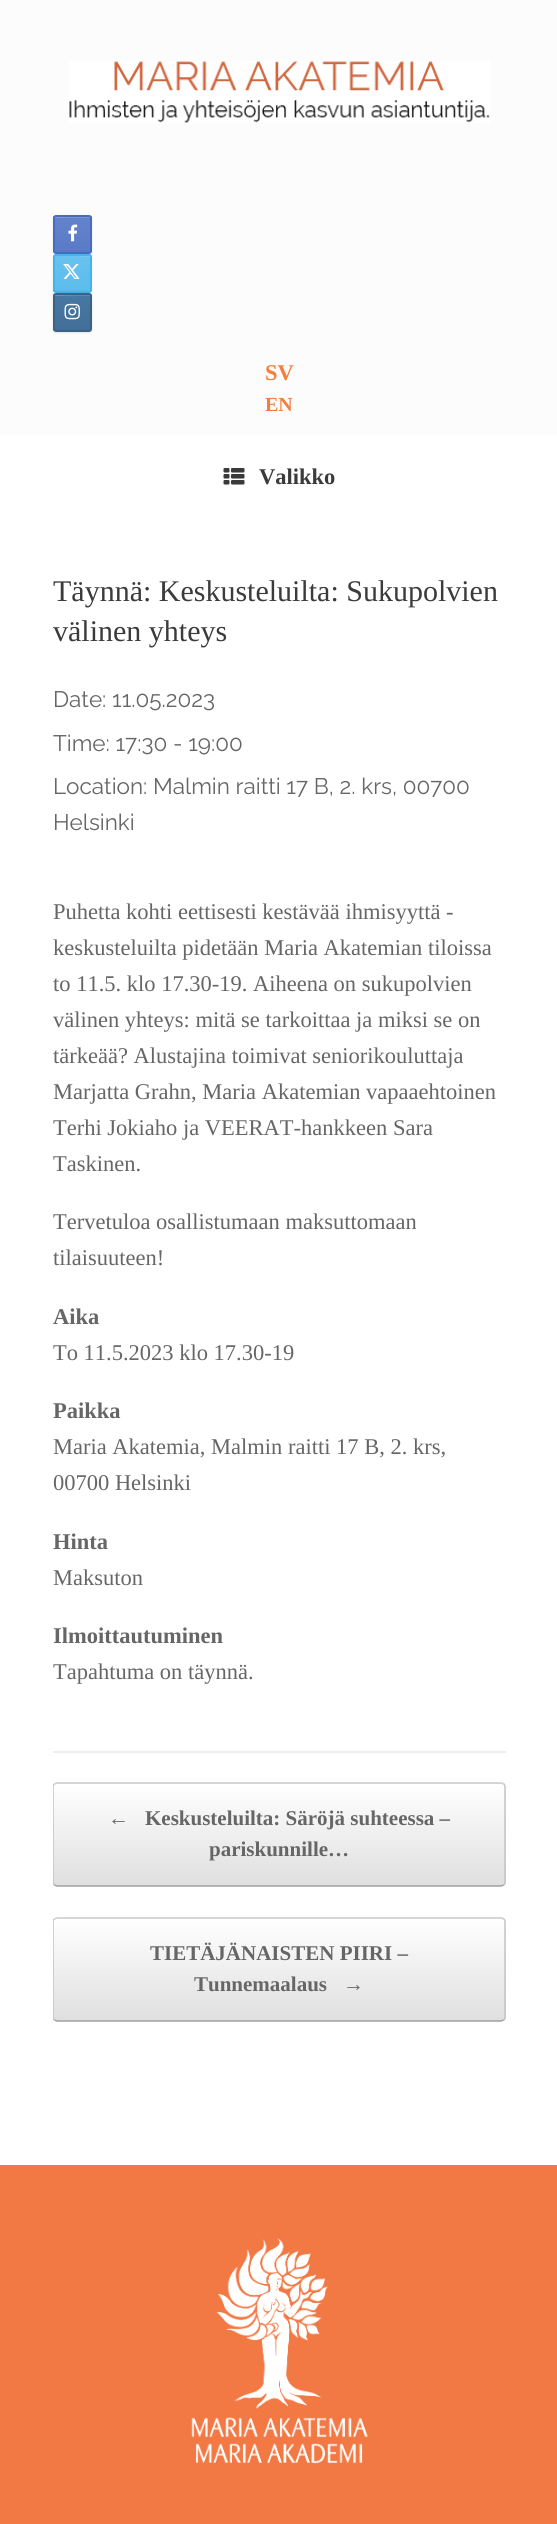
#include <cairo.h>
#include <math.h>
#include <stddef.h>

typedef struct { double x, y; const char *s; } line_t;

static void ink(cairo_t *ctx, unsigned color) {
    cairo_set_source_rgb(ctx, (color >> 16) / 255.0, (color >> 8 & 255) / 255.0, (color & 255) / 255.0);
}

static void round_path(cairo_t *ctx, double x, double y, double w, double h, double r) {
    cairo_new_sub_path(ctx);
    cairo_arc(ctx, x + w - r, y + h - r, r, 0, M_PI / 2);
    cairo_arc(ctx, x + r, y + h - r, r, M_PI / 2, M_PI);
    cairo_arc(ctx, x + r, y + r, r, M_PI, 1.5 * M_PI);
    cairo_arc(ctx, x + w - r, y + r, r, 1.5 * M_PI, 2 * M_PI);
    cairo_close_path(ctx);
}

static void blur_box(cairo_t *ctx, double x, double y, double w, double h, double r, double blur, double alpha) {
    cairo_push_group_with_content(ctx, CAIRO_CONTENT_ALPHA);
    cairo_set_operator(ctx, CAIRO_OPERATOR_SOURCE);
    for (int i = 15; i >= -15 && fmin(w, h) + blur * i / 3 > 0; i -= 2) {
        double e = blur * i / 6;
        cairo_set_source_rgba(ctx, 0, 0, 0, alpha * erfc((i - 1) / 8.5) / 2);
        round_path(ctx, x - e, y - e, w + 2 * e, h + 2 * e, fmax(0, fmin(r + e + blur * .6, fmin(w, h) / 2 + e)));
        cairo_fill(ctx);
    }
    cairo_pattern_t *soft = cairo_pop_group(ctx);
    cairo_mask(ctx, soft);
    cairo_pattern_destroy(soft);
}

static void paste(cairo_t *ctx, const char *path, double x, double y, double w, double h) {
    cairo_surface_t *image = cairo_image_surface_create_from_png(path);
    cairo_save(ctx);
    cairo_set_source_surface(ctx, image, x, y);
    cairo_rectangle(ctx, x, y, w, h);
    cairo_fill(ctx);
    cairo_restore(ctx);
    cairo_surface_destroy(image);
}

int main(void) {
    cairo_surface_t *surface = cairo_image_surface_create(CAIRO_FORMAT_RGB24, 557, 2524);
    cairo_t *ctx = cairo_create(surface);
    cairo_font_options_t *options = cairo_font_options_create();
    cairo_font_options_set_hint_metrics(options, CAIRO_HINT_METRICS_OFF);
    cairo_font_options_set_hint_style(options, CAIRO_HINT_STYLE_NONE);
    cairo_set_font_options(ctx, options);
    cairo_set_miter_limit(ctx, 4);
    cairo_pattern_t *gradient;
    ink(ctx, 0xF27844);
    cairo_paint(ctx);
    ink(ctx, 0xFCFCFC);
    cairo_rectangle(ctx, 0, 0, 557, 435);
    cairo_fill(ctx);
    paste(ctx, "media/1.png", 69, 61, 421, 62);
    ink(ctx, 0x000000);
    blur_box(ctx, 53, 216, 39, 39, 3, 1, 0.1);
    cairo_save(ctx);
    round_path(ctx, 53, 215, 39, 39, 3);
    cairo_clip(ctx);
    gradient = cairo_pattern_create_linear(72, 252, 72, 216);
    cairo_pattern_add_color_stop_rgba(gradient, 0, 0.349, 0.478, 0.78, 1);
    cairo_pattern_add_color_stop_rgba(gradient, 1, 0.392, 0.514, 0.796, 1);
    cairo_set_source(ctx, gradient);
    cairo_pattern_destroy(gradient);
    cairo_rectangle(ctx, 53, 216, 39, 36);
    cairo_fill(ctx);
    cairo_restore(ctx);
    ink(ctx, 0x839CD5);
    cairo_new_path(ctx);
    cairo_move_to(ctx, 56, 218);
    cairo_curve_to(ctx, 61.5, 218, 89, 217, 90, 218);
    cairo_curve_to(ctx, 90, 214.5, 85, 216, 83, 216);
    cairo_line_to(ctx, 61, 216);
    cairo_curve_to(ctx, 55.5, 216, 54, 214.5, 54, 219.5);
    cairo_curve_to(ctx, 54, 218.5, 55, 218, 56, 218);
    cairo_close_path(ctx);
    cairo_fill(ctx);
    round_path(ctx, 54, 216, 37, 37, 2);
    ink(ctx, 0x466BC1);
    cairo_stroke(ctx);
    paste(ctx, "media/2.png", 68, 224, 10, 18);
    ink(ctx, 0x000000);
    blur_box(ctx, 53, 255, 39, 39, 3, 1, 0.1);
    cairo_save(ctx);
    round_path(ctx, 53, 254, 39, 39, 3);
    cairo_clip(ctx);
    gradient = cairo_pattern_create_linear(72, 291, 72, 255);
    cairo_pattern_add_color_stop_rgba(gradient, 0, 0.357, 0.737, 0.925, 1);
    cairo_pattern_add_color_stop_rgba(gradient, 1, 0.412, 0.761, 0.933, 1);
    cairo_set_source(ctx, gradient);
    cairo_pattern_destroy(gradient);
    cairo_rectangle(ctx, 53, 255, 39, 36);
    cairo_fill(ctx);
    cairo_restore(ctx);
    ink(ctx, 0x87CEF1);
    cairo_new_path(ctx);
    cairo_move_to(ctx, 56, 256);
    cairo_curve_to(ctx, 59, 256, 89, 256, 90, 257);
    cairo_curve_to(ctx, 90, 253.5, 85, 255, 83, 255);
    cairo_line_to(ctx, 61, 255);
    cairo_curve_to(ctx, 56.5, 255, 54, 253.5, 54, 258);
    cairo_curve_to(ctx, 54, 257, 55, 256, 56, 256);
    cairo_close_path(ctx);
    cairo_fill(ctx);
    round_path(ctx, 54, 255, 37, 37, 2);
    ink(ctx, 0x44B3E9);
    cairo_stroke(ctx);
    paste(ctx, "media/3.png", 63, 264, 17, 15);
    ink(ctx, 0x000000);
    blur_box(ctx, 53, 294, 39, 39, 3, 1, 0.1);
    cairo_save(ctx);
    round_path(ctx, 53, 293, 39, 39, 3);
    cairo_clip(ctx);
    gradient = cairo_pattern_create_linear(72, 330, 72, 294);
    cairo_pattern_add_color_stop_rgba(gradient, 0, 0.259, 0.435, 0.596, 1);
    cairo_pattern_add_color_stop_rgba(gradient, 1, 0.278, 0.467, 0.639, 1);
    cairo_set_source(ctx, gradient);
    cairo_pattern_destroy(gradient);
    cairo_rectangle(ctx, 53, 294, 39, 36);
    cairo_fill(ctx);
    cairo_restore(ctx);
    ink(ctx, 0x6C92B5);
    cairo_new_path(ctx);
    cairo_move_to(ctx, 56, 296);
    cairo_curve_to(ctx, 61.5, 296, 89, 295, 90, 296);
    cairo_curve_to(ctx, 90, 292.5, 85, 294, 83, 294);
    cairo_line_to(ctx, 61, 294);
    cairo_curve_to(ctx, 55.5, 294, 54, 292.5, 54, 297.5);
    cairo_curve_to(ctx, 54, 296.5, 55, 296, 56, 296);
    cairo_close_path(ctx);
    cairo_fill(ctx);
    round_path(ctx, 54, 294, 37, 37, 2);
    ink(ctx, 0x3A6286);
    cairo_stroke(ctx);
    paste(ctx, "media/4.png", 64, 303, 16, 17);
    cairo_select_font_face(ctx, "Liberation Serif", CAIRO_FONT_SLANT_NORMAL, CAIRO_FONT_WEIGHT_BOLD);
    cairo_set_font_size(ctx, 22.5);
    ink(ctx, 0xF47E3C);
    cairo_move_to(ctx, 265, 380);
    cairo_show_text(ctx, "SV");
    cairo_set_font_size(ctx, 20);
    cairo_move_to(ctx, 265, 411);
    cairo_show_text(ctx, "EN");
    ink(ctx, 0xFFFFFF);
    cairo_rectangle(ctx, 0, 435, 557, 1730);
    cairo_fill(ctx);
    paste(ctx, "media/5.png", 223, 468, 22, 17);
    cairo_set_font_size(ctx, 22.5);
    ink(ctx, 0x3B3B3B);
    cairo_move_to(ctx, 259, 484);
    cairo_show_text(ctx, "Valikko");
    ink(ctx, 0xEEEEEE);
    cairo_rectangle(ctx, 53, 1751, 453, 2);
    cairo_fill(ctx);
    cairo_select_font_face(ctx, "Liberation Serif", CAIRO_FONT_SLANT_NORMAL, CAIRO_FONT_WEIGHT_NORMAL);
    cairo_set_font_size(ctx, 30);
    ink(ctx, 0x3B3B3B);
    cairo_move_to(ctx, 53, 601);
    cairo_show_text(ctx, "Täynnä: Keskusteluilta: Sukupolvien");
    cairo_move_to(ctx, 53, 641);
    cairo_show_text(ctx, "välinen yhteys");
    cairo_select_font_face(ctx, "Raleway Thin", CAIRO_FONT_SLANT_NORMAL, CAIRO_FONT_WEIGHT_NORMAL);
    cairo_set_font_size(ctx, 22.5);
    ink(ctx, 0x666666);
    {
        static const line_t items[] = {
            {53, 707, "Date: 11.05.2023"},
            {53, 751, "Time: 17:30 - 19:00"},
            {53, 794, "Location: Malmin raitti 17 B, 2. krs, 00700"},
            {53, 830, "Helsinki"},
        };
        for (size_t i = 0; i < sizeof items / sizeof *items; i++) {
            cairo_move_to(ctx, items[i].x, items[i].y);
            cairo_show_text(ctx, items[i].s);
        }
    }
    cairo_select_font_face(ctx, "Liberation Serif", CAIRO_FONT_SLANT_NORMAL, CAIRO_FONT_WEIGHT_NORMAL);
    {
        static const line_t items[] = {
            {53, 919, "Puhetta kohti eettisesti kestävää ihmisyyttä -"},
            {53, 955, "keskusteluilta pidetään Maria Akatemian tiloissa"},
            {53, 991, "to 11.5. klo 17.30-19. Aiheena on sukupolvien"},
            {53, 1027, "välinen yhteys: mitä se tarkoittaa ja miksi se on"},
            {53, 1063, "tärkeää? Alustajina toimivat seniorikouluttaja"},
            {53, 1099, "Marjatta Grahn, Maria Akatemian vapaaehtoinen"},
            {53, 1135, "Terhi Jokiaho ja VEERAT-hankkeen Sara"},
            {53, 1171, "Taskinen."},
            {53, 1229, "Tervetuloa osallistumaan maksuttomaan"},
            {53, 1265, "tilaisuuteen!"},
        };
        for (size_t i = 0; i < sizeof items / sizeof *items; i++) {
            cairo_move_to(ctx, items[i].x, items[i].y);
            cairo_show_text(ctx, items[i].s);
        }
    }
    cairo_select_font_face(ctx, "Liberation Serif", CAIRO_FONT_SLANT_NORMAL, CAIRO_FONT_WEIGHT_BOLD);
    cairo_move_to(ctx, 53, 1324);
    cairo_show_text(ctx, "Aika");
    cairo_select_font_face(ctx, "Liberation Serif", CAIRO_FONT_SLANT_NORMAL, CAIRO_FONT_WEIGHT_NORMAL);
    cairo_move_to(ctx, 53, 1360);
    cairo_show_text(ctx, "To 11.5.2023 klo 17.30-19");
    cairo_select_font_face(ctx, "Liberation Serif", CAIRO_FONT_SLANT_NORMAL, CAIRO_FONT_WEIGHT_BOLD);
    cairo_move_to(ctx, 53, 1418);
    cairo_show_text(ctx, "Paikka");
    cairo_select_font_face(ctx, "Liberation Serif", CAIRO_FONT_SLANT_NORMAL, CAIRO_FONT_WEIGHT_NORMAL);
    cairo_move_to(ctx, 53, 1454);
    cairo_show_text(ctx, "Maria Akatemia, Malmin raitti 17 B, 2. krs,");
    cairo_move_to(ctx, 53, 1490);
    cairo_show_text(ctx, "00700 Helsinki");
    cairo_select_font_face(ctx, "Liberation Serif", CAIRO_FONT_SLANT_NORMAL, CAIRO_FONT_WEIGHT_BOLD);
    cairo_move_to(ctx, 53, 1549);
    cairo_show_text(ctx, "Hinta");
    cairo_select_font_face(ctx, "Liberation Serif", CAIRO_FONT_SLANT_NORMAL, CAIRO_FONT_WEIGHT_NORMAL);
    cairo_move_to(ctx, 53, 1585);
    cairo_show_text(ctx, "Maksuton");
    cairo_select_font_face(ctx, "Liberation Serif", CAIRO_FONT_SLANT_NORMAL, CAIRO_FONT_WEIGHT_BOLD);
    cairo_move_to(ctx, 53, 1643);
    cairo_show_text(ctx, "Ilmoittautuminen");
    cairo_select_font_face(ctx, "Liberation Serif", CAIRO_FONT_SLANT_NORMAL, CAIRO_FONT_WEIGHT_NORMAL);
    cairo_move_to(ctx, 53, 1679);
    cairo_show_text(ctx, "Tapahtuma on täynnä.");
    cairo_save(ctx);
    round_path(ctx, 53, 1782, 453, 105, 5);
    cairo_clip(ctx);
    gradient = cairo_pattern_create_linear(54, 1784, 54, 1682);
    cairo_pattern_add_color_stop_rgba(gradient, 0, 0.875, 0.875, 0.875, 1);
    cairo_pattern_add_color_stop_rgba(gradient, 1, 1, 1, 1, 1);
    cairo_set_source(ctx, gradient);
    cairo_pattern_destroy(gradient);
    cairo_rectangle(ctx, 53, 1782, 453, 2);
    cairo_fill(ctx);
    gradient = cairo_pattern_create_linear(54, 1886, 54, 1784);
    cairo_pattern_add_color_stop_rgba(gradient, 0, 0.875, 0.875, 0.875, 1);
    cairo_pattern_add_color_stop_rgba(gradient, 1, 1, 1, 1, 1);
    cairo_set_source(ctx, gradient);
    cairo_pattern_destroy(gradient);
    cairo_rectangle(ctx, 53, 1784, 453, 102);
    cairo_fill(ctx);
    cairo_restore(ctx);
    cairo_new_path(ctx);
    cairo_move_to(ctx, 54.5, 1784);
    cairo_line_to(ctx, 57, 1783);
    cairo_line_to(ctx, 501, 1783);
    cairo_line_to(ctx, 503.5, 1784);
    ink(ctx, 0xD2D2D2);
    cairo_set_line_width(ctx, 1.5);
    cairo_stroke(ctx);
    cairo_new_path(ctx);
    cairo_move_to(ctx, 503.5, 1784);
    cairo_curve_to(ctx, 504.5, 1784.5, 505, 1785.5, 505, 1786.5);
    cairo_line_to(ctx, 505, 1882.5);
    cairo_curve_to(ctx, 505, 1883.5, 504.5, 1884.5, 503.5, 1885);
    ink(ctx, 0xC3C3C3);
    cairo_stroke(ctx);
    cairo_new_path(ctx);
    cairo_move_to(ctx, 503.5, 1885);
    cairo_line_to(ctx, 501, 1886);
    cairo_line_to(ctx, 57, 1886);
    cairo_line_to(ctx, 54.5, 1885);
    ink(ctx, 0x9F9F9F);
    cairo_stroke(ctx);
    cairo_save(ctx);
    cairo_rectangle(ctx, 53, 1782, 453, 270);
    cairo_clip(ctx);
    cairo_new_path(ctx);
    cairo_move_to(ctx, 54.5, 1885);
    cairo_curve_to(ctx, 53.5, 1884.5, 53, 1883.5, 53, 1882.5);
    cairo_line_to(ctx, 53, 1786.5);
    cairo_curve_to(ctx, 53, 1785.5, 53.5, 1784.5, 54.5, 1784);
    ink(ctx, 0xC3C3C3);
    cairo_stroke(ctx);
    cairo_restore(ctx);
    cairo_select_font_face(ctx, "Liberation Serif", CAIRO_FONT_SLANT_NORMAL, CAIRO_FONT_WEIGHT_BOLD);
    cairo_set_font_size(ctx, 21);
    ink(ctx, 0x666666);
    {
        static const line_t items[] = {
            {108, 1825, "←"},
            {145, 1825, "Keskusteluilta: Säröjä suhteessa –"},
            {209, 1856, "pariskunnille…"},
        };
        for (size_t i = 0; i < sizeof items / sizeof *items; i++) {
            cairo_move_to(ctx, items[i].x, items[i].y);
            cairo_show_text(ctx, items[i].s);
        }
    }
    cairo_save(ctx);
    round_path(ctx, 53, 1917, 453, 105, 5);
    cairo_clip(ctx);
    gradient = cairo_pattern_create_linear(54, 1919, 54, 1817);
    cairo_pattern_add_color_stop_rgba(gradient, 0, 0.875, 0.875, 0.875, 1);
    cairo_pattern_add_color_stop_rgba(gradient, 1, 1, 1, 1, 1);
    cairo_set_source(ctx, gradient);
    cairo_pattern_destroy(gradient);
    cairo_rectangle(ctx, 53, 1917, 453, 2);
    cairo_fill(ctx);
    gradient = cairo_pattern_create_linear(54, 2021, 54, 1919);
    cairo_pattern_add_color_stop_rgba(gradient, 0, 0.875, 0.875, 0.875, 1);
    cairo_pattern_add_color_stop_rgba(gradient, 1, 1, 1, 1, 1);
    cairo_set_source(ctx, gradient);
    cairo_pattern_destroy(gradient);
    cairo_rectangle(ctx, 53, 1919, 453, 102);
    cairo_fill(ctx);
    cairo_restore(ctx);
    cairo_new_path(ctx);
    cairo_move_to(ctx, 54.5, 1919);
    cairo_line_to(ctx, 57, 1918);
    cairo_line_to(ctx, 501, 1918);
    cairo_line_to(ctx, 503.5, 1919);
    ink(ctx, 0xD2D2D2);
    cairo_stroke(ctx);
    cairo_new_path(ctx);
    cairo_move_to(ctx, 503.5, 1919);
    cairo_curve_to(ctx, 504.5, 1919.5, 505, 1920.5, 505, 1921.5);
    cairo_line_to(ctx, 505, 2017.5);
    cairo_curve_to(ctx, 505, 2018.5, 504.5, 2019.5, 503.5, 2020);
    ink(ctx, 0xC3C3C3);
    cairo_stroke(ctx);
    cairo_new_path(ctx);
    cairo_move_to(ctx, 503.5, 2020);
    cairo_line_to(ctx, 501, 2021);
    cairo_line_to(ctx, 57, 2021);
    cairo_line_to(ctx, 54.5, 2020);
    ink(ctx, 0x9F9F9F);
    cairo_stroke(ctx);
    cairo_save(ctx);
    cairo_rectangle(ctx, 53, 1782, 453, 270);
    cairo_clip(ctx);
    cairo_new_path(ctx);
    cairo_move_to(ctx, 54.5, 2020);
    cairo_curve_to(ctx, 53.5, 2019.5, 53, 2018.5, 53, 2017.5);
    cairo_line_to(ctx, 53, 1921.5);
    cairo_curve_to(ctx, 53, 1920.5, 53.5, 1919.5, 54.5, 1919);
    ink(ctx, 0xC3C3C3);
    cairo_stroke(ctx);
    cairo_restore(ctx);
    ink(ctx, 0x666666);
    {
        static const line_t items[] = {
            {150, 1960, "TIETÄJÄNAISTEN PIIRI –"},
            {194, 1991, "Tunnemaalaus"},
            {343, 1991, "→"},
        };
        for (size_t i = 0; i < sizeof items / sizeof *items; i++) {
            cairo_move_to(ctx, items[i].x, items[i].y);
            cairo_show_text(ctx, items[i].s);
        }
    }
    paste(ctx, "media/6.png", 191, 2238, 177, 226);
    cairo_surface_write_to_png(surface, "image.png");
    cairo_font_options_destroy(options);
    cairo_destroy(ctx);
    cairo_surface_destroy(surface);
    return 0;
}
